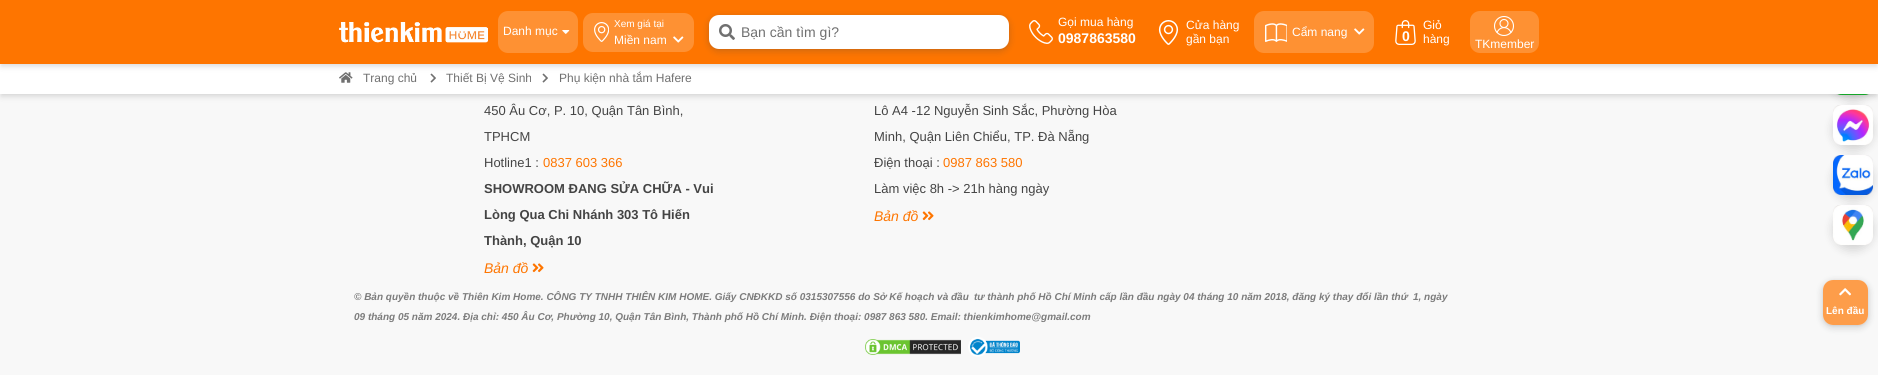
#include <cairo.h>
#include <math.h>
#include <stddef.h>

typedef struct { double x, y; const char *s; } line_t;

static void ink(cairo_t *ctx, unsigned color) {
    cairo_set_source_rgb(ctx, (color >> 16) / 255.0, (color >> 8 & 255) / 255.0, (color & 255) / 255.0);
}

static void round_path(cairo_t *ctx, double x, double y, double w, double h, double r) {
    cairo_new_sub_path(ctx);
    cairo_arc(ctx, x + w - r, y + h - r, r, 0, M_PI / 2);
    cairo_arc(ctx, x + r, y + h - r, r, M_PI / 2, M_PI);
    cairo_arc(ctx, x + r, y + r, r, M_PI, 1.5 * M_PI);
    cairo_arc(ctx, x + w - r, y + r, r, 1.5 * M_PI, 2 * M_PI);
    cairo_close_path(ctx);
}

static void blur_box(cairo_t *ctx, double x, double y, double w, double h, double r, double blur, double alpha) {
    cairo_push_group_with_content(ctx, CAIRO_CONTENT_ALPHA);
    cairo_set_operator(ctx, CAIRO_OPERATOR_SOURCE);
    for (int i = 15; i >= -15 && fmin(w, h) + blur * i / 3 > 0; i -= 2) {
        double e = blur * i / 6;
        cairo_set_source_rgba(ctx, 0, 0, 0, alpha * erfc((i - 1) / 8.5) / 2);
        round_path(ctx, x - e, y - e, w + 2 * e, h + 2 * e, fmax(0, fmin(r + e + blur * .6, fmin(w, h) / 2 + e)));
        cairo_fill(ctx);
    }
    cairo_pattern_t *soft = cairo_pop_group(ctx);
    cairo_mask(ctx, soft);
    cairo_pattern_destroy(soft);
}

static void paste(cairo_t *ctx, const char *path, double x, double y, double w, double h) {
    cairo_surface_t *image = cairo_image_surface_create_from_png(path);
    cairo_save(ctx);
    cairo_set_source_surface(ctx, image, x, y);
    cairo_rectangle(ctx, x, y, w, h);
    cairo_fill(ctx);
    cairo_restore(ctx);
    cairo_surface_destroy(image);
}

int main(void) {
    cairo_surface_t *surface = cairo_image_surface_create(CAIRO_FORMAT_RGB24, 1878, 375);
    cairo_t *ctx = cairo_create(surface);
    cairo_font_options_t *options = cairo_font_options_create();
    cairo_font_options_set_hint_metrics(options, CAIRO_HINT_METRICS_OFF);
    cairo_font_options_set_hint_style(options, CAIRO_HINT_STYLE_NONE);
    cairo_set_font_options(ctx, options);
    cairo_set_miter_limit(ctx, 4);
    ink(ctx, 0xF8F8F8);
    cairo_paint(ctx);
    ink(ctx, 0x000000);
    blur_box(ctx, 1833, 60, 40, 40, 20, 5, 0.15);
    paste(ctx, "media/13.png", 1836, 94, 34, 1);
    blur_box(ctx, 1, 67, 1876, 28, 0, 2, 0.06);
    blur_box(ctx, 1833, 110, 40, 40, 20, 5, 0.15);
    paste(ctx, "media/14.png", 1833, 105, 40, 40);
    blur_box(ctx, 1, 69, 1876, 28, 0, 3, 0.1);
    ink(ctx, 0xFFFFFF);
    cairo_rectangle(ctx, 0, 64, 1878, 30);
    cairo_fill(ctx);
    ink(ctx, 0x000000);
    blur_box(ctx, 1, 3, 1876, 62, 0, 2, 0.06);
    paste(ctx, "media/11.png", 339, 72, 14, 11);
    paste(ctx, "media/12.png", 430, 73, 6, 10);
    paste(ctx, "media/12.png", 542, 73, 6, 10);
    blur_box(ctx, 1, 5, 1876, 62, 0, 3, 0.1);
    ink(ctx, 0xFE7500);
    cairo_rectangle(ctx, 0, 0, 1878, 64);
    cairo_fill(ctx);
    paste(ctx, "media/1.png", 339, 22, 149, 21);
    ink(ctx, 0xFE9133);
    round_path(ctx, 498, 11, 80, 42, 10);
    cairo_fill(ctx);
    cairo_select_font_face(ctx, "Liberation Sans", CAIRO_FONT_SLANT_NORMAL, CAIRO_FONT_WEIGHT_NORMAL);
    cairo_set_font_size(ctx, 12);
    ink(ctx, 0xFFFFFF);
    cairo_move_to(ctx, 503, 35);
    cairo_show_text(ctx, "Danh mục");
    paste(ctx, "media/2.png", 562, 30, 8, 4);
    ink(ctx, 0xFE9133);
    round_path(ctx, 583, 13, 111, 39, 10);
    cairo_fill(ctx);
    paste(ctx, "media/3.png", 594, 22, 15, 20);
    cairo_set_font_size(ctx, 10);
    ink(ctx, 0xFFFFFF);
    cairo_move_to(ctx, 614, 27);
    cairo_show_text(ctx, "Xem giá tại");
    cairo_set_font_size(ctx, 12);
    cairo_move_to(ctx, 614, 44);
    cairo_show_text(ctx, "Miền nam");
    paste(ctx, "media/4.png", 673, 36, 11, 7);
    ink(ctx, 0x3C4043);
    blur_box(ctx, 707, 15, 304, 38, 12, 3, 0.15);
    blur_box(ctx, 709, 16, 300, 34, 10, 1, 0.1);
    ink(ctx, 0xFFFFFF);
    cairo_new_path(ctx);
    cairo_move_to(ctx, 719, 15);
    cairo_line_to(ctx, 735, 15);
    cairo_line_to(ctx, 735, 49);
    cairo_line_to(ctx, 719, 49);
    cairo_curve_to(ctx, 713.5, 49, 709, 44.5, 709, 39);
    cairo_line_to(ctx, 709, 25);
    cairo_curve_to(ctx, 709, 19.5, 713.5, 15, 719, 15);
    cairo_close_path(ctx);
    cairo_fill(ctx);
    paste(ctx, "media/5.png", 719, 24, 16, 16);
    cairo_new_path(ctx);
    cairo_move_to(ctx, 735, 15);
    cairo_line_to(ctx, 999, 15);
    cairo_curve_to(ctx, 1004.5, 15, 1009, 19.5, 1009, 25);
    cairo_line_to(ctx, 1009, 39);
    cairo_curve_to(ctx, 1009, 44.5, 1004.5, 49, 999, 49);
    cairo_line_to(ctx, 735, 49);
    cairo_close_path(ctx);
    cairo_fill(ctx);
    cairo_set_font_size(ctx, 14);
    ink(ctx, 0x707070);
    cairo_move_to(ctx, 741, 37);
    cairo_show_text(ctx, "Bạn cần tìm gì?");
    paste(ctx, "media/6.png", 1029, 20, 24, 24);
    cairo_set_font_size(ctx, 12);
    ink(ctx, 0xFFFFFF);
    cairo_move_to(ctx, 1058, 26);
    cairo_show_text(ctx, "Gọi mua hàng");
    cairo_select_font_face(ctx, "Liberation Sans", CAIRO_FONT_SLANT_NORMAL, CAIRO_FONT_WEIGHT_BOLD);
    cairo_set_font_size(ctx, 14);
    cairo_move_to(ctx, 1058, 43);
    cairo_show_text(ctx, "0987863580");
    paste(ctx, "media/7.png", 1158, 20, 21, 25);
    cairo_select_font_face(ctx, "Liberation Sans", CAIRO_FONT_SLANT_NORMAL, CAIRO_FONT_WEIGHT_NORMAL);
    cairo_set_font_size(ctx, 12);
    cairo_move_to(ctx, 1186, 29);
    cairo_show_text(ctx, "Cửa hàng");
    cairo_move_to(ctx, 1186, 43);
    cairo_show_text(ctx, "gần bạn");
    ink(ctx, 0xFE9133);
    round_path(ctx, 1254, 11, 120, 42, 10);
    cairo_fill(ctx);
    paste(ctx, "media/8.png", 1265, 23, 22, 19);
    ink(ctx, 0xFFFFFF);
    cairo_move_to(ctx, 1292, 36);
    cairo_show_text(ctx, "Cẩm nang");
    paste(ctx, "media/4.png", 1354, 28, 11, 7);
    paste(ctx, "media/9.png", 1395, 20, 21, 25);
    cairo_select_font_face(ctx, "Liberation Sans", CAIRO_FONT_SLANT_NORMAL, CAIRO_FONT_WEIGHT_BOLD);
    cairo_set_font_size(ctx, 14);
    cairo_move_to(ctx, 1402, 41);
    cairo_show_text(ctx, "0");
    cairo_select_font_face(ctx, "Liberation Sans", CAIRO_FONT_SLANT_NORMAL, CAIRO_FONT_WEIGHT_NORMAL);
    cairo_set_font_size(ctx, 12);
    cairo_move_to(ctx, 1423, 29);
    cairo_show_text(ctx, "Giỏ");
    cairo_move_to(ctx, 1423, 43);
    cairo_show_text(ctx, "hàng");
    ink(ctx, 0xFE9133);
    round_path(ctx, 1470, 11, 69, 42, 10);
    cairo_fill(ctx);
    paste(ctx, "media/10.png", 1494, 16, 20, 20);
    ink(ctx, 0xFFFFFF);
    cairo_move_to(ctx, 1475, 48);
    cairo_show_text(ctx, "TKmember");
    ink(ctx, 0x707070);
    {
        static const line_t items[] = {
            {363, 82, "Trang chủ"},
            {446, 82, "Thiết Bị Vệ Sinh"},
            {559, 82, "Phụ kiện nhà tắm Hafere"},
        };
        for (size_t i = 0; i < sizeof items / sizeof *items; i++) {
            cairo_move_to(ctx, items[i].x, items[i].y);
            cairo_show_text(ctx, items[i].s);
        }
    }
    ink(ctx, 0x000000);
    blur_box(ctx, 1833, 160, 40, 40, 20, 5, 0.15);
    paste(ctx, "media/15.png", 1833, 155, 40, 40);
    blur_box(ctx, 1833, 210, 40, 40, 20, 5, 0.15);
    paste(ctx, "media/16.png", 1833, 205, 40, 40);
    cairo_set_font_size(ctx, 13);
    ink(ctx, 0x444444);
    {
        static const line_t items[] = {
            {484, 115, "450 Âu Cơ, P. 10, Quận Tân Bình,"},
            {484, 141, "TPHCM"},
            {484, 167, "Hotline1 :"},
        };
        for (size_t i = 0; i < sizeof items / sizeof *items; i++) {
            cairo_move_to(ctx, items[i].x, items[i].y);
            cairo_show_text(ctx, items[i].s);
        }
    }
    ink(ctx, 0xFE7500);
    cairo_move_to(ctx, 543, 167);
    cairo_show_text(ctx, "0837 603 366");
    cairo_select_font_face(ctx, "Liberation Sans", CAIRO_FONT_SLANT_NORMAL, CAIRO_FONT_WEIGHT_BOLD);
    ink(ctx, 0x444444);
    {
        static const line_t items[] = {
            {484, 193, "SHOWROOM ĐANG SỬA CHỮA - Vui"},
            {484, 219, "Lòng Qua Chi Nhánh 303 Tô Hiến"},
            {484, 245, "Thành, Quận 10"},
        };
        for (size_t i = 0; i < sizeof items / sizeof *items; i++) {
            cairo_move_to(ctx, items[i].x, items[i].y);
            cairo_show_text(ctx, items[i].s);
        }
    }
    cairo_select_font_face(ctx, "Liberation Sans", CAIRO_FONT_SLANT_ITALIC, CAIRO_FONT_WEIGHT_NORMAL);
    cairo_set_font_size(ctx, 14);
    ink(ctx, 0xFE7500);
    cairo_move_to(ctx, 484, 273);
    cairo_show_text(ctx, "Bản đồ");
    paste(ctx, "media/17.png", 532, 263, 12, 10);
    cairo_select_font_face(ctx, "Liberation Sans", CAIRO_FONT_SLANT_NORMAL, CAIRO_FONT_WEIGHT_NORMAL);
    cairo_set_font_size(ctx, 13);
    ink(ctx, 0x444444);
    {
        static const line_t items[] = {
            {874, 115, "Lô A4 -12 Nguyễn Sinh Sắc, Phường Hòa"},
            {874, 141, "Minh, Quận Liên Chiểu, TP. Đà Nẵng"},
            {874, 167, "Điện thoại :"},
        };
        for (size_t i = 0; i < sizeof items / sizeof *items; i++) {
            cairo_move_to(ctx, items[i].x, items[i].y);
            cairo_show_text(ctx, items[i].s);
        }
    }
    ink(ctx, 0xFE7500);
    cairo_move_to(ctx, 943, 167);
    cairo_show_text(ctx, "0987 863 580");
    ink(ctx, 0x444444);
    cairo_move_to(ctx, 874, 193);
    cairo_show_text(ctx, "Làm việc 8h -> 21h hàng ngày");
    cairo_select_font_face(ctx, "Liberation Sans", CAIRO_FONT_SLANT_ITALIC, CAIRO_FONT_WEIGHT_NORMAL);
    cairo_set_font_size(ctx, 14);
    ink(ctx, 0xFE7500);
    cairo_move_to(ctx, 874, 221);
    cairo_show_text(ctx, "Bản đồ");
    paste(ctx, "media/17.png", 922, 211, 12, 10);
    cairo_select_font_face(ctx, "Liberation Sans", CAIRO_FONT_SLANT_ITALIC, CAIRO_FONT_WEIGHT_BOLD);
    cairo_set_font_size(ctx, 10);
    ink(ctx, 0x7C7C7C);
    cairo_move_to(ctx, 354, 300);
    cairo_show_text(ctx, "© Bản quyền thuộc về Thiên Kim Home. CÔNG TY TNHH THIÊN KIM HOME. Giấy CNĐKKD số 0315307556 do Sở Kế hoạch và đầu");
    cairo_move_to(ctx, 974, 300);
    cairo_show_text(ctx, "tư thành phố Hồ Chí Minh cấp lần đầu ngày 04 tháng 10 năm 2018, đăng ký thay đổi lần thứ");
    cairo_move_to(ctx, 1413, 300);
    cairo_show_text(ctx, "1, ngày");
    cairo_move_to(ctx, 354, 320);
    cairo_show_text(ctx, "09 tháng 05 năm 2024. Địa chỉ: 450 Âu Cơ, Phường 10, Quận Tân Bình, Thành phố Hồ Chí Minh. Điện thoại: 0987 863 580. Email: thienkimhome@gmail.com");
    paste(ctx, "media/18.png", 865, 339, 96, 16);
    paste(ctx, "media/19.png", 968, 337, 52, 20);
    cairo_save(ctx);
    cairo_set_fill_rule(ctx, CAIRO_FILL_RULE_EVEN_ODD);
    cairo_new_path(ctx);
    cairo_move_to(ctx, 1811, 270);
    cairo_line_to(ctx, 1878, 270);
    cairo_line_to(ctx, 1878, 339);
    cairo_line_to(ctx, 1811, 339);
    cairo_close_path(ctx);
    cairo_move_to(ctx, 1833, 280);
    cairo_line_to(ctx, 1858, 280);
    cairo_curve_to(ctx, 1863.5, 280, 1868, 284.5, 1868, 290);
    cairo_line_to(ctx, 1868, 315);
    cairo_curve_to(ctx, 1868, 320.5, 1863.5, 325, 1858, 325);
    cairo_line_to(ctx, 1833, 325);
    cairo_curve_to(ctx, 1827.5, 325, 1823, 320.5, 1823, 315);
    cairo_line_to(ctx, 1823, 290);
    cairo_curve_to(ctx, 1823, 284.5, 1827.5, 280, 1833, 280);
    cairo_close_path(ctx);
    cairo_clip(ctx);
    ink(ctx, 0x3C4043);
    blur_box(ctx, 1821, 280, 49, 49, 12, 3, 0.15);
    cairo_restore(ctx);
    cairo_save(ctx);
    cairo_set_fill_rule(ctx, CAIRO_FILL_RULE_EVEN_ODD);
    cairo_new_path(ctx);
    cairo_move_to(ctx, 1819, 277);
    cairo_line_to(ctx, 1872, 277);
    cairo_line_to(ctx, 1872, 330);
    cairo_line_to(ctx, 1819, 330);
    cairo_close_path(ctx);
    cairo_move_to(ctx, 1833, 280);
    cairo_line_to(ctx, 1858, 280);
    cairo_curve_to(ctx, 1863.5, 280, 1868, 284.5, 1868, 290);
    cairo_line_to(ctx, 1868, 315);
    cairo_curve_to(ctx, 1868, 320.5, 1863.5, 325, 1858, 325);
    cairo_line_to(ctx, 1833, 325);
    cairo_curve_to(ctx, 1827.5, 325, 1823, 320.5, 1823, 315);
    cairo_line_to(ctx, 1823, 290);
    cairo_curve_to(ctx, 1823, 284.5, 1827.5, 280, 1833, 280);
    cairo_close_path(ctx);
    cairo_clip(ctx);
    ink(ctx, 0x3C4043);
    blur_box(ctx, 1823, 281, 45, 45, 10, 1, 0.1);
    cairo_restore(ctx);
    cairo_set_source_rgba(ctx, 1, 0.467, 0, 0.7);
    round_path(ctx, 1823, 280, 45, 45, 10);
    cairo_fill(ctx);
    paste(ctx, "media/20.png", 1839, 288, 12, 8);
    cairo_select_font_face(ctx, "Liberation Sans", CAIRO_FONT_SLANT_NORMAL, CAIRO_FONT_WEIGHT_BOLD);
    ink(ctx, 0xFFFFFF);
    cairo_move_to(ctx, 1826, 314);
    cairo_show_text(ctx, "Lên đầu");
    cairo_surface_write_to_png(surface, "image.png");
    cairo_font_options_destroy(options);
    cairo_destroy(ctx);
    cairo_surface_destroy(surface);
    return 0;
}
